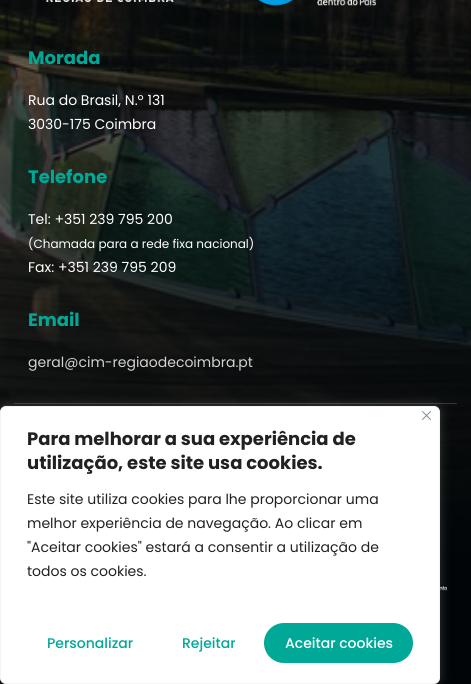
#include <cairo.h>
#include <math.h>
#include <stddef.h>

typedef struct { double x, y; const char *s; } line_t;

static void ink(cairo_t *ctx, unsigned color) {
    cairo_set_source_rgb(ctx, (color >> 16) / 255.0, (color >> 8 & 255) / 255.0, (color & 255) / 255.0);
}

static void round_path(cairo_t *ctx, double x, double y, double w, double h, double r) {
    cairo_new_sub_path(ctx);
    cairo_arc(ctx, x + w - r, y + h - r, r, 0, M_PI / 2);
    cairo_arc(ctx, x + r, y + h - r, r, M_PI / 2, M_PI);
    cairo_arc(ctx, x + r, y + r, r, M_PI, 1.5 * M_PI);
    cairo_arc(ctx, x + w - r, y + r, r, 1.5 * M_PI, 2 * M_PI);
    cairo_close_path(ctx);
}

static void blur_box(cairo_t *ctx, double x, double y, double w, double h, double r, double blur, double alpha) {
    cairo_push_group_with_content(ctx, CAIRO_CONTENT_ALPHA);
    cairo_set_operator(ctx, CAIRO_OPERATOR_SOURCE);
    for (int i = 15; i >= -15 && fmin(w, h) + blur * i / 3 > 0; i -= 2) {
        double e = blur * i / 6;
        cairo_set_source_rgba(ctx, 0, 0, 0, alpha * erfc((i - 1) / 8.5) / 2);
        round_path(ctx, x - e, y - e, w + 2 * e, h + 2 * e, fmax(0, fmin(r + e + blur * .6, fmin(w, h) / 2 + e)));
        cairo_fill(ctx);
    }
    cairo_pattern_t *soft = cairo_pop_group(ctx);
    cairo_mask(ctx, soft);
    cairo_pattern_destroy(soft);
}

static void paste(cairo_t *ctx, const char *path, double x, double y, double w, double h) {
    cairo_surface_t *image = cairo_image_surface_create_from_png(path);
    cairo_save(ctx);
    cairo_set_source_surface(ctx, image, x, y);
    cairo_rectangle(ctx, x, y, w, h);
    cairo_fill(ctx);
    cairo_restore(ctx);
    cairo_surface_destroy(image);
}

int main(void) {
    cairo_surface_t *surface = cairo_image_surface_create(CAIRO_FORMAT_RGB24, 471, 684);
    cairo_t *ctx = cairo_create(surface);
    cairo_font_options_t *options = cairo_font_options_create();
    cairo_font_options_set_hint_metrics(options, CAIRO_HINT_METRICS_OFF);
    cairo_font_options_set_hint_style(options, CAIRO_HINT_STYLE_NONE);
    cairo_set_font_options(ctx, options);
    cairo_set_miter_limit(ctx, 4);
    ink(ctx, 0xFFFFFF);
    cairo_paint(ctx);
    paste(ctx, "media/1.png", 0, 0, 471, 684);
    cairo_set_source_rgba(ctx, 1, 1, 1, 0.17);
    cairo_rectangle(ctx, 14, 403, 443, 1);
    cairo_fill(ctx);
    paste(ctx, "media/2.png", 45, 0, 129, 2);
    paste(ctx, "media/3.png", 258, 0, 118, 6);
    cairo_select_font_face(ctx, "Poppins", CAIRO_FONT_SLANT_NORMAL, CAIRO_FONT_WEIGHT_BOLD);
    cairo_set_font_size(ctx, 18);
    ink(ctx, 0x00A897);
    cairo_move_to(ctx, 28, 64);
    cairo_show_text(ctx, "Morada");
    cairo_select_font_face(ctx, "Poppins", CAIRO_FONT_SLANT_NORMAL, CAIRO_FONT_WEIGHT_NORMAL);
    cairo_set_font_size(ctx, 14);
    ink(ctx, 0xFFFFFF);
    cairo_move_to(ctx, 28, 105);
    cairo_show_text(ctx, "Rua do Brasil, N.º 131");
    cairo_move_to(ctx, 28, 129);
    cairo_show_text(ctx, "3030-175 Coimbra");
    cairo_select_font_face(ctx, "Poppins", CAIRO_FONT_SLANT_NORMAL, CAIRO_FONT_WEIGHT_BOLD);
    cairo_set_font_size(ctx, 18);
    ink(ctx, 0x00A897);
    cairo_move_to(ctx, 28, 183);
    cairo_show_text(ctx, "Telefone");
    cairo_select_font_face(ctx, "Poppins", CAIRO_FONT_SLANT_NORMAL, CAIRO_FONT_WEIGHT_NORMAL);
    cairo_set_font_size(ctx, 14);
    ink(ctx, 0xFFFFFF);
    cairo_move_to(ctx, 28, 224);
    cairo_show_text(ctx, "Tel: +351 239 795 200");
    cairo_set_font_size(ctx, 12);
    cairo_move_to(ctx, 28, 248);
    cairo_show_text(ctx, "(Chamada para a rede fixa nacional)");
    cairo_set_font_size(ctx, 14);
    cairo_move_to(ctx, 28, 272);
    cairo_show_text(ctx, "Fax: +351 239 795 209");
    cairo_select_font_face(ctx, "Poppins", CAIRO_FONT_SLANT_NORMAL, CAIRO_FONT_WEIGHT_BOLD);
    cairo_set_font_size(ctx, 18);
    ink(ctx, 0x00A897);
    cairo_move_to(ctx, 28, 326);
    cairo_show_text(ctx, "Email");
    cairo_select_font_face(ctx, "Poppins", CAIRO_FONT_SLANT_NORMAL, CAIRO_FONT_WEIGHT_NORMAL);
    cairo_set_font_size(ctx, 14);
    ink(ctx, 0xD2D2D2);
    cairo_move_to(ctx, 28, 367);
    cairo_show_text(ctx, "geral@cim-regiaodecoimbra.pt");
    paste(ctx, "media/4.png", 440, 586, 7, 5);
    ink(ctx, 0xACABAB);
    blur_box(ctx, 0, 405, 440, 278, 6, 5, 0.3);
    ink(ctx, 0xFFFFFF);
    round_path(ctx, 0.5, 406.5, 439, 277, 5.5);
    cairo_fill_preserve(ctx);
    ink(ctx, 0xF4F4F4);
    cairo_set_line_width(ctx, 1);
    cairo_stroke(ctx);
    paste(ctx, "media/5.png", 422, 411, 9, 9);
    cairo_select_font_face(ctx, "Poppins", CAIRO_FONT_SLANT_NORMAL, CAIRO_FONT_WEIGHT_BOLD);
    cairo_set_font_size(ctx, 18);
    ink(ctx, 0x212121);
    cairo_move_to(ctx, 27, 445);
    cairo_show_text(ctx, "Para melhorar a sua experiência de");
    cairo_move_to(ctx, 27, 469);
    cairo_show_text(ctx, "utilização, este site usa cookies.");
    cairo_select_font_face(ctx, "Poppins", CAIRO_FONT_SLANT_NORMAL, CAIRO_FONT_WEIGHT_NORMAL);
    cairo_set_font_size(ctx, 14);
    {
        static const line_t items[] = {
            {27, 504, "Este site utiliza cookies para lhe proporcionar uma"},
            {27, 528, "melhor experiência de navegação. Ao clicar em"},
            {27, 552, "\"Aceitar cookies\" estará a consentir a utilização de"},
            {27, 576, "todos os cookies."},
        };
        for (size_t i = 0; i < sizeof items / sizeof *items; i++) {
            cairo_move_to(ctx, items[i].x, items[i].y);
            cairo_show_text(ctx, items[i].s);
        }
    }
    cairo_select_font_face(ctx, "Poppins Medium", CAIRO_FONT_SLANT_NORMAL, CAIRO_FONT_WEIGHT_NORMAL);
    ink(ctx, 0x00A897);
    cairo_move_to(ctx, 47, 648);
    cairo_show_text(ctx, "Personalizar");
    cairo_move_to(ctx, 182, 648);
    cairo_show_text(ctx, "Rejeitar");
    round_path(ctx, 264, 623, 149, 40, 20);
    cairo_fill(ctx);
    ink(ctx, 0xFFFFFF);
    cairo_move_to(ctx, 285, 648);
    cairo_show_text(ctx, "Aceitar cookies");
    cairo_surface_write_to_png(surface, "image.png");
    cairo_font_options_destroy(options);
    cairo_destroy(ctx);
    cairo_surface_destroy(surface);
    return 0;
}
